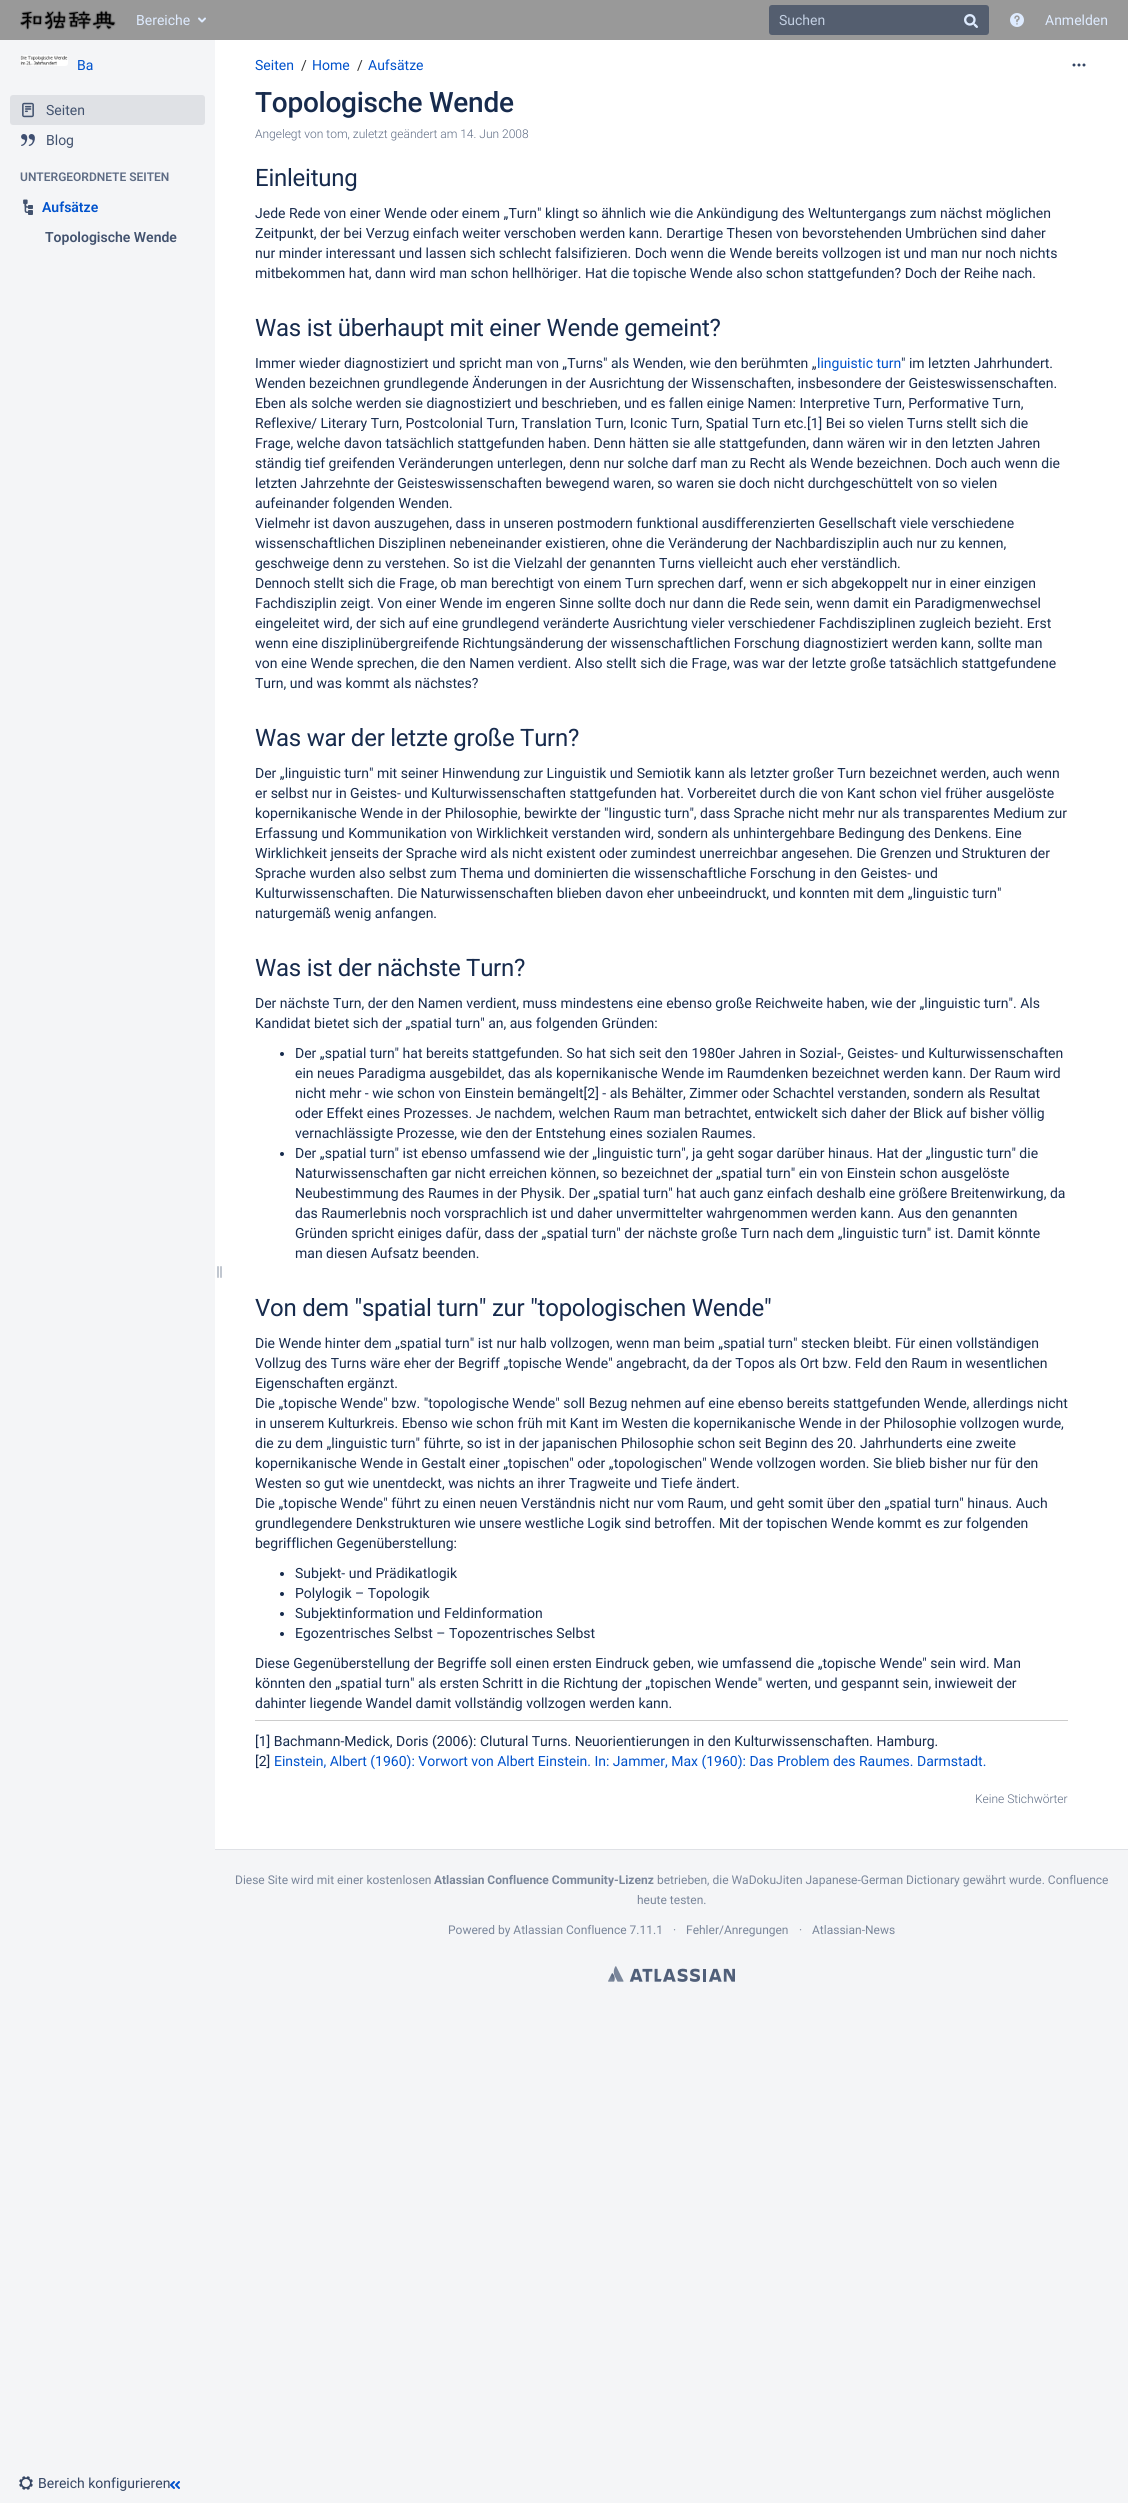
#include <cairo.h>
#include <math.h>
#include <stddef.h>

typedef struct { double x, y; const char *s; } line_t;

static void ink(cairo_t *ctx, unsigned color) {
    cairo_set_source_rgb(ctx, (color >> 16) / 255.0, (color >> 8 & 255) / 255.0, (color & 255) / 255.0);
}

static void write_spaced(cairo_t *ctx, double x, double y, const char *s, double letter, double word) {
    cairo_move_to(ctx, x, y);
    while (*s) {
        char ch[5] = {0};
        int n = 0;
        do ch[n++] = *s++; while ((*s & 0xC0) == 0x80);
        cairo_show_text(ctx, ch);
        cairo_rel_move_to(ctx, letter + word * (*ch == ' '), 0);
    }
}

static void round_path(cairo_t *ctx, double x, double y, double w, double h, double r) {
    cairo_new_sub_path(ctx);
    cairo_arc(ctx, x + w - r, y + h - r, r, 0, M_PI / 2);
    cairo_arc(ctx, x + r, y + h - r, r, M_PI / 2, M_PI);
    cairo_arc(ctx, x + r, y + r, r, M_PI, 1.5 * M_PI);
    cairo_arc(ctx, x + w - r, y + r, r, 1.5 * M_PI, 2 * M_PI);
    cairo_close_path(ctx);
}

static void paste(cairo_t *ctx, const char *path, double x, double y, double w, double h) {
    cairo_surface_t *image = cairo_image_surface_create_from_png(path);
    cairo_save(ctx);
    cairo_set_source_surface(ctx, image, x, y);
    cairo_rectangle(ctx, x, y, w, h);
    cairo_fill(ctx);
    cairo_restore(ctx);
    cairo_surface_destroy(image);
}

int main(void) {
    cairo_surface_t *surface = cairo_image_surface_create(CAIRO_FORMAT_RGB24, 1128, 2503);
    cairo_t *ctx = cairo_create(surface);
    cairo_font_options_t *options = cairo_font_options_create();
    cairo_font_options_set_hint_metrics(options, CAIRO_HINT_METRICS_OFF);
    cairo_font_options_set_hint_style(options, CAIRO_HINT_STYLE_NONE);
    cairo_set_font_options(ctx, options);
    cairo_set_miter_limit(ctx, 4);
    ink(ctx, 0xF4F5F7);
    cairo_paint(ctx);
    ink(ctx, 0x999999);
    cairo_rectangle(ctx, 0, 0, 1128, 40);
    cairo_fill(ctx);
    paste(ctx, "media/1.png", 20, 10, 96, 20);
    cairo_select_font_face(ctx, "Roboto", CAIRO_FONT_SLANT_NORMAL, CAIRO_FONT_WEIGHT_NORMAL);
    cairo_set_font_size(ctx, 14);
    ink(ctx, 0xDEEBFF);
    cairo_move_to(ctx, 136, 25);
    cairo_show_text(ctx, "Bereiche");
    paste(ctx, "media/2.png", 198, 17, 8, 6);
    ink(ctx, 0x545E6F);
    round_path(ctx, 769, 5, 220, 30, 3);
    cairo_fill(ctx);
    ink(ctx, 0xC2CFE2);
    cairo_move_to(ctx, 779, 25);
    cairo_show_text(ctx, "Suchen");
    paste(ctx, "media/3.png", 964, 14, 14, 14);
    paste(ctx, "media/4.png", 1010, 13, 14, 14);
    ink(ctx, 0xDEEBFF);
    cairo_move_to(ctx, 1045, 25);
    cairo_show_text(ctx, "Anmelden");
    paste(ctx, "media/5.png", 20, 55, 48, 11);
    ink(ctx, 0x0052CC);
    cairo_move_to(ctx, 77, 70);
    cairo_show_text(ctx, "Ba");
    ink(ctx, 0xDFE1E5);
    round_path(ctx, 10, 95, 195, 30, 3);
    cairo_fill(ctx);
    paste(ctx, "media/6.png", 22, 102, 12, 16);
    ink(ctx, 0x42526E);
    cairo_move_to(ctx, 46, 115);
    cairo_show_text(ctx, "Seiten");
    paste(ctx, "media/7.png", 21, 134, 14, 12);
    cairo_move_to(ctx, 46, 145);
    cairo_show_text(ctx, "Blog");
    cairo_select_font_face(ctx, "Roboto SemiBold", CAIRO_FONT_SLANT_NORMAL, CAIRO_FONT_WEIGHT_NORMAL);
    cairo_set_font_size(ctx, 12);
    ink(ctx, 0x5E6C84);
    cairo_move_to(ctx, 20, 181);
    cairo_show_text(ctx, "UNTERGEORDNETE SEITEN");
    paste(ctx, "media/8.png", 23, 199, 10, 16);
    cairo_set_font_size(ctx, 14);
    ink(ctx, 0x0052CC);
    cairo_move_to(ctx, 42, 212);
    cairo_show_text(ctx, "Aufsätze");
    ink(ctx, 0x42526E);
    cairo_move_to(ctx, 45, 242);
    cairo_show_text(ctx, "Topologische Wende");
    ink(ctx, 0xFFFFFF);
    cairo_rectangle(ctx, 215, 40, 913, 1809);
    cairo_fill(ctx);
    paste(ctx, "media/9.png", 217, 1266, 5, 12);
    paste(ctx, "media/10.png", 19, 2476, 14, 14);
    cairo_select_font_face(ctx, "Roboto", CAIRO_FONT_SLANT_NORMAL, CAIRO_FONT_WEIGHT_NORMAL);
    ink(ctx, 0x344563);
    cairo_move_to(ctx, 38, 2488);
    cairo_show_text(ctx, "Bereich konfigurieren");
    paste(ctx, "media/11.png", 170, 2481, 10, 8);
    ink(ctx, 0xDFE1E6);
    cairo_rectangle(ctx, 215, 1849, 913, 1);
    cairo_fill(ctx);
    ink(ctx, 0x0052CC);
    cairo_move_to(ctx, 255, 70);
    cairo_show_text(ctx, "Seiten");
    ink(ctx, 0x333333);
    cairo_move_to(ctx, 301, 70);
    cairo_show_text(ctx, "/");
    ink(ctx, 0x0052CC);
    cairo_move_to(ctx, 312, 70);
    cairo_show_text(ctx, "Home");
    ink(ctx, 0x333333);
    cairo_move_to(ctx, 357, 70);
    cairo_show_text(ctx, "/");
    ink(ctx, 0x0052CC);
    cairo_move_to(ctx, 368, 70);
    cairo_show_text(ctx, "Aufsätze");
    cairo_select_font_face(ctx, "Roboto Medium", CAIRO_FONT_SLANT_NORMAL, CAIRO_FONT_WEIGHT_NORMAL);
    cairo_set_font_size(ctx, 28);
    ink(ctx, 0x172B4D);
    write_spaced(ctx, 255, 112, "Topologische Wende", -0.25, 0);
    paste(ctx, "media/12.png", 1072, 63, 14, 4);
    cairo_select_font_face(ctx, "Roboto Light", CAIRO_FONT_SLANT_NORMAL, CAIRO_FONT_WEIGHT_NORMAL);
    cairo_set_font_size(ctx, 12);
    ink(ctx, 0x5E6C84);
    cairo_move_to(ctx, 255, 138);
    cairo_show_text(ctx, "Angelegt von tom, zuletzt geändert am 14. Jun 2008");
    cairo_select_font_face(ctx, "Roboto", CAIRO_FONT_SLANT_NORMAL, CAIRO_FONT_WEIGHT_NORMAL);
    cairo_set_font_size(ctx, 24);
    ink(ctx, 0x172B4D);
    write_spaced(ctx, 255, 186, "Einleitung", -0.25, 0);
    cairo_set_font_size(ctx, 14);
    {
        static const line_t items[] = {
            {255, 218, "Jede Rede von einer Wende oder einem „Turn\" klingt so ähnlich wie die Ankündigung des Weltuntergangs zum nächst möglichen"},
            {255, 238, "Zeitpunkt, der bei Verzug einfach weiter verschoben werden kann. Derartige Thesen von bevorstehenden Umbrüchen sind daher"},
            {255, 258, "nur minder interessant und lassen sich schlecht falsifizieren. Doch wenn die Wende bereits vollzogen ist und man nur noch nichts"},
            {255, 278, "mitbekommen hat, dann wird man schon hellhöriger. Hat die topische Wende also schon stattgefunden? Doch der Reihe nach."},
        };
        for (size_t i = 0; i < sizeof items / sizeof *items; i++) {
            cairo_move_to(ctx, items[i].x, items[i].y);
            cairo_show_text(ctx, items[i].s);
        }
    }
    cairo_set_font_size(ctx, 24);
    write_spaced(ctx, 255, 336, "Was ist überhaupt mit einer Wende gemeint?", -0.25, 0);
    cairo_set_font_size(ctx, 14);
    cairo_move_to(ctx, 255, 368);
    cairo_show_text(ctx, "Immer wieder diagnostiziert und spricht man von „Turns\" als Wenden, wie den berühmten „");
    ink(ctx, 0x0052CC);
    cairo_move_to(ctx, 817, 368);
    cairo_show_text(ctx, "linguistic turn");
    ink(ctx, 0x172B4D);
    {
        static const line_t items[] = {
            {901, 368, "\" im letzten Jahrhundert."},
            {255, 388, "Wenden bezeichnen grundlegende Änderungen in der Ausrichtung der Wissenschaften, insbesondere der Geisteswissenschaften."},
            {255, 408, "Eben als solche werden sie diagnostiziert und beschrieben, und es fallen einige Namen: Interpretive Turn, Performative Turn,"},
            {255, 428, "Reflexive/ Literary Turn, Postcolonial Turn, Translation Turn, Iconic Turn, Spatial Turn etc.[1] Bei so vielen Turns stellt sich die"},
            {255, 448, "Frage, welche davon tatsächlich stattgefunden haben. Denn hätten sie alle stattgefunden, dann wären wir in den letzten Jahren"},
            {255, 468, "ständig tief greifenden Veränderungen unterlegen, denn nur solche darf man zu Recht als Wende bezeichnen. Doch auch wenn die"},
            {255, 488, "letzten Jahrzehnte der Geisteswissenschaften bewegend waren, so waren sie doch nicht durchgeschüttelt von so vielen"},
            {255, 508, "aufeinander folgenden Wenden."},
            {255, 528, "Vielmehr ist davon auszugehen, dass in unseren postmodern funktional ausdifferenzierten Gesellschaft viele verschiedene"},
            {255, 548, "wissenschaftlichen Disziplinen nebeneinander existieren, ohne die Veränderung der Nachbardisziplin auch nur zu kennen,"},
            {255, 568, "geschweige denn zu verstehen. So ist die Vielzahl der genannten Turns vielleicht auch eher verständlich."},
            {255, 588, "Dennoch stellt sich die Frage, ob man berechtigt von einem Turn sprechen darf, wenn er sich abgekoppelt nur in einer einzigen"},
            {255, 608, "Fachdisziplin zeigt. Von einer Wende im engeren Sinne sollte doch nur dann die Rede sein, wenn damit ein Paradigmenwechsel"},
            {255, 628, "eingeleitet wird, der sich auf eine grundlegend veränderte Ausrichtung vieler verschiedener Fachdisziplinen zugleich bezieht. Erst"},
            {255, 648, "wenn eine disziplinübergreifende Richtungsänderung der wissenschaftlichen Forschung diagnostiziert werden kann, sollte man"},
            {255, 668, "von eine Wende sprechen, die den Namen verdient. Also stellt sich die Frage, was war der letzte große tatsächlich stattgefundene"},
            {255, 688, "Turn, und was kommt als nächstes?"},
        };
        for (size_t i = 0; i < sizeof items / sizeof *items; i++) {
            cairo_move_to(ctx, items[i].x, items[i].y);
            cairo_show_text(ctx, items[i].s);
        }
    }
    cairo_set_font_size(ctx, 24);
    write_spaced(ctx, 255, 746, "Was war der letzte große Turn?", -0.25, 0);
    cairo_set_font_size(ctx, 14);
    {
        static const line_t items[] = {
            {255, 778, "Der „linguistic turn\" mit seiner Hinwendung zur Linguistik und Semiotik kann als letzter großer Turn bezeichnet werden, auch wenn"},
            {255, 798, "er selbst nur in Geistes- und Kulturwissenschaften stattgefunden hat. Vorbereitet durch die von Kant schon viel früher ausgelöste"},
            {255, 818, "kopernikanische Wende in der Philosophie, bewirkte der \"lingustic turn\", dass Sprache nicht mehr nur als transparentes Medium zur"},
            {255, 838, "Erfassung und Kommunikation von Wirklichkeit verstanden wird, sondern als unhintergehbare Bedingung des Denkens. Eine"},
            {255, 858, "Wirklichkeit jenseits der Sprache wird als nicht existent oder zumindest unerreichbar angesehen. Die Grenzen und Strukturen der"},
            {255, 878, "Sprache wurden also selbst zum Thema und dominierten die wissenschaftliche Forschung in den Geistes- und"},
            {255, 898, "Kulturwissenschaften. Die Naturwissenschaften blieben davon eher unbeeindruckt, und konnten mit dem „linguistic turn\""},
            {255, 918, "naturgemäß wenig anfangen."},
        };
        for (size_t i = 0; i < sizeof items / sizeof *items; i++) {
            cairo_move_to(ctx, items[i].x, items[i].y);
            cairo_show_text(ctx, items[i].s);
        }
    }
    cairo_set_font_size(ctx, 24);
    write_spaced(ctx, 255, 976, "Was ist der nächste Turn?", -0.25, 0);
    cairo_set_font_size(ctx, 14);
    cairo_move_to(ctx, 255, 1008);
    cairo_show_text(ctx, "Der nächste Turn, der den Namen verdient, muss mindestens eine ebenso große Reichweite haben, wie der „linguistic turn\". Als");
    cairo_move_to(ctx, 255, 1028);
    cairo_show_text(ctx, "Kandidat bietet sich der „spatial turn\" an, aus folgenden Gründen:");
    cairo_new_path(ctx);
    cairo_arc(ctx, 282, 1054, 2, 0, 2 * M_PI);
    cairo_fill(ctx);
    {
        static const line_t items[] = {
            {295, 1058, "Der „spatial turn\" hat bereits stattgefunden. So hat sich seit den 1980er Jahren in Sozial-, Geistes- und Kulturwissenschaften"},
            {295, 1078, "ein neues Paradigma ausgebildet, das als kopernikanische Wende im Raumdenken bezeichnet werden kann. Der Raum wird"},
            {295, 1098, "nicht mehr - wie schon von Einstein bemängelt[2] - als Behälter, Zimmer oder Schachtel verstanden, sondern als Resultat"},
            {295, 1118, "oder Effekt eines Prozesses. Je nachdem, welchen Raum man betrachtet, entwickelt sich daher der Blick auf bisher völlig"},
            {295, 1138, "vernachlässigte Prozesse, wie den der Entstehung eines sozialen Raumes."},
        };
        for (size_t i = 0; i < sizeof items / sizeof *items; i++) {
            cairo_move_to(ctx, items[i].x, items[i].y);
            cairo_show_text(ctx, items[i].s);
        }
    }
    cairo_new_path(ctx);
    cairo_arc(ctx, 282, 1154, 2, 0, 2 * M_PI);
    cairo_fill(ctx);
    {
        static const line_t items[] = {
            {295, 1158, "Der „spatial turn\" ist ebenso umfassend wie der „linguistic turn\", ja geht sogar darüber hinaus. Hat der „lingustic turn\" die"},
            {295, 1178, "Naturwissenschaften gar nicht erreichen können, so bezeichnet der „spatial turn\" ein von Einstein schon ausgelöste"},
            {295, 1198, "Neubestimmung des Raumes in der Physik. Der „spatial turn\" hat auch ganz einfach deshalb eine größere Breitenwirkung, da"},
            {295, 1218, "das Raumerlebnis noch vorsprachlich ist und daher unvermittelter wahrgenommen werden kann. Aus den genannten"},
            {295, 1238, "Gründen spricht einiges dafür, dass der „spatial turn\" der nächste große Turn nach dem „linguistic turn\" ist. Damit könnte"},
            {295, 1258, "man diesen Aufsatz beenden."},
        };
        for (size_t i = 0; i < sizeof items / sizeof *items; i++) {
            cairo_move_to(ctx, items[i].x, items[i].y);
            cairo_show_text(ctx, items[i].s);
        }
    }
    cairo_set_font_size(ctx, 24);
    write_spaced(ctx, 255, 1316, "Von dem \"spatial turn\" zur \"topologischen Wende\"", -0.25, 0);
    cairo_set_font_size(ctx, 14);
    {
        static const line_t items[] = {
            {255, 1348, "Die Wende hinter dem „spatial turn\" ist nur halb vollzogen, wenn man beim „spatial turn\" stecken bleibt. Für einen vollständigen"},
            {255, 1368, "Vollzug des Turns wäre eher der Begriff „topische Wende\" angebracht, da der Topos als Ort bzw. Feld den Raum in wesentlichen"},
            {255, 1388, "Eigenschaften ergänzt."},
            {255, 1408, "Die „topische Wende\" bzw. \"topologische Wende\" soll Bezug nehmen auf eine ebenso bereits stattgefunden Wende, allerdings nicht"},
            {255, 1428, "in unserem Kulturkreis. Ebenso wie schon früh mit Kant im Westen die kopernikanische Wende in der Philosophie vollzogen wurde,"},
            {255, 1448, "die zu dem „linguistic turn\" führte, so ist in der japanischen Philosophie schon seit Beginn des 20. Jahrhunderts eine zweite"},
            {255, 1468, "kopernikanische Wende in Gestalt einer „topischen\" oder „topologischen\" Wende vollzogen worden. Sie blieb bisher nur für den"},
            {255, 1488, "Westen so gut wie unentdeckt, was nichts an ihrer Tragweite und Tiefe ändert."},
            {255, 1508, "Die „topische Wende\" führt zu einen neuen Verständnis nicht nur vom Raum, und geht somit über den „spatial turn\" hinaus. Auch"},
            {255, 1528, "grundlegendere Denkstrukturen wie unsere westliche Logik sind betroffen. Mit der topischen Wende kommt es zur folgenden"},
            {255, 1548, "begrifflichen Gegenüberstellung:"},
        };
        for (size_t i = 0; i < sizeof items / sizeof *items; i++) {
            cairo_move_to(ctx, items[i].x, items[i].y);
            cairo_show_text(ctx, items[i].s);
        }
    }
    cairo_new_path(ctx);
    cairo_arc(ctx, 282, 1574, 2, 0, 2 * M_PI);
    cairo_fill(ctx);
    cairo_move_to(ctx, 295, 1578);
    cairo_show_text(ctx, "Subjekt- und Prädikatlogik");
    cairo_new_path(ctx);
    cairo_arc(ctx, 282, 1594, 2, 0, 2 * M_PI);
    cairo_fill(ctx);
    cairo_move_to(ctx, 295, 1598);
    cairo_show_text(ctx, "Polylogik – Topologik");
    cairo_new_path(ctx);
    cairo_arc(ctx, 282, 1614, 2, 0, 2 * M_PI);
    cairo_fill(ctx);
    cairo_move_to(ctx, 295, 1618);
    cairo_show_text(ctx, "Subjektinformation und Feldinformation");
    cairo_new_path(ctx);
    cairo_arc(ctx, 282, 1634, 2, 0, 2 * M_PI);
    cairo_fill(ctx);
    {
        static const line_t items[] = {
            {295, 1638, "Egozentrisches Selbst – Topozentrisches Selbst"},
            {255, 1668, "Diese Gegenüberstellung der Begriffe soll einen ersten Eindruck geben, wie umfassend die „topische Wende\" sein wird. Man"},
            {255, 1688, "könnten den „spatial turn\" als ersten Schritt in die Richtung der „topischen Wende\" werten, und gespannt sein, inwieweit der"},
            {255, 1708, "dahinter liegende Wandel damit vollständig vollzogen werden kann."},
        };
        for (size_t i = 0; i < sizeof items / sizeof *items; i++) {
            cairo_move_to(ctx, items[i].x, items[i].y);
            cairo_show_text(ctx, items[i].s);
        }
    }
    ink(ctx, 0xCCCCCC);
    cairo_rectangle(ctx, 255, 1720, 813, 1);
    cairo_fill(ctx);
    ink(ctx, 0x172B4D);
    cairo_move_to(ctx, 255, 1746);
    cairo_show_text(ctx, "[1] Bachmann-Medick, Doris (2006): Clutural Turns. Neuorientierungen in den Kulturwissenschaften. Hamburg.");
    cairo_move_to(ctx, 255, 1766);
    cairo_show_text(ctx, "[2]");
    ink(ctx, 0x0052CC);
    cairo_move_to(ctx, 274, 1766);
    cairo_show_text(ctx, "Einstein, Albert (1960): Vorwort von Albert Einstein. In: Jammer, Max (1960): Das Problem des Raumes. Darmstadt.");
    cairo_select_font_face(ctx, "Roboto Light", CAIRO_FONT_SLANT_NORMAL, CAIRO_FONT_WEIGHT_NORMAL);
    cairo_set_font_size(ctx, 12);
    ink(ctx, 0x5E6C84);
    cairo_move_to(ctx, 975, 1803);
    cairo_show_text(ctx, "Keine Stichwörter");
    cairo_select_font_face(ctx, "Roboto", CAIRO_FONT_SLANT_NORMAL, CAIRO_FONT_WEIGHT_NORMAL);
    ink(ctx, 0x7A869A);
    cairo_move_to(ctx, 235, 1884);
    cairo_show_text(ctx, "Diese Site wird mit einer kostenlosen");
    cairo_select_font_face(ctx, "Roboto", CAIRO_FONT_SLANT_NORMAL, CAIRO_FONT_WEIGHT_BOLD);
    cairo_move_to(ctx, 434, 1884);
    cairo_show_text(ctx, "Atlassian Confluence Community-Lizenz");
    cairo_select_font_face(ctx, "Roboto", CAIRO_FONT_SLANT_NORMAL, CAIRO_FONT_WEIGHT_NORMAL);
    {
        static const line_t items[] = {
            {657, 1884, "betrieben, die WaDokuJiten Japanese-German Dictionary gewährt wurde. Confluence"},
            {637, 1904, "heute testen."},
            {448, 1934, "Powered by Atlassian Confluence 7.11.1"},
            {673, 1934, "·"},
            {686, 1934, "Fehler/Anregungen"},
            {799, 1934, "·"},
            {812, 1934, "Atlassian-News"},
        };
        for (size_t i = 0; i < sizeof items / sizeof *items; i++) {
            cairo_move_to(ctx, items[i].x, items[i].y);
            cairo_show_text(ctx, items[i].s);
        }
    }
    paste(ctx, "media/13.png", 608, 1966, 127, 16);
    cairo_surface_write_to_png(surface, "image.png");
    cairo_font_options_destroy(options);
    cairo_destroy(ctx);
    cairo_surface_destroy(surface);
    return 0;
}
